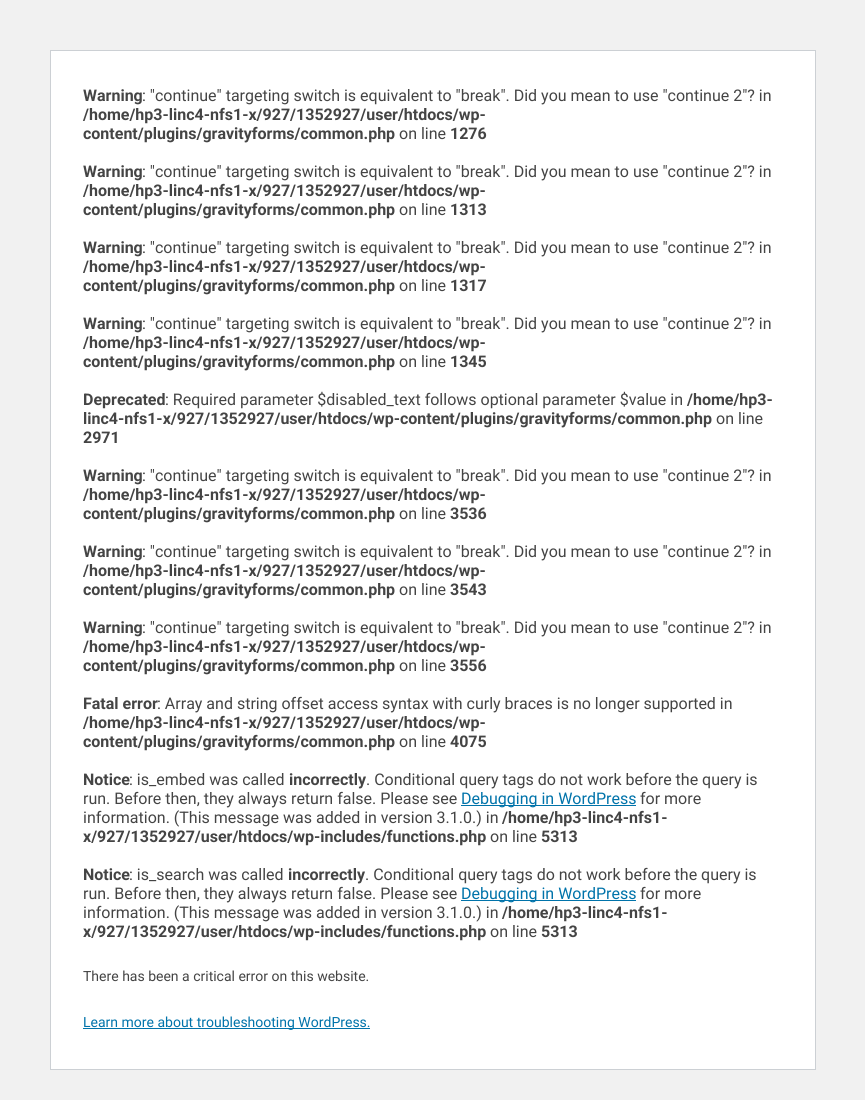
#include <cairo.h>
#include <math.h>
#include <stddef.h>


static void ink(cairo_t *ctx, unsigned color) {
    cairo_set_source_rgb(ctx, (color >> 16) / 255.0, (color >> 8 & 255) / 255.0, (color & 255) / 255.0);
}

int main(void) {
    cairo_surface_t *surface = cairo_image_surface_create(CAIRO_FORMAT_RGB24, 865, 1100);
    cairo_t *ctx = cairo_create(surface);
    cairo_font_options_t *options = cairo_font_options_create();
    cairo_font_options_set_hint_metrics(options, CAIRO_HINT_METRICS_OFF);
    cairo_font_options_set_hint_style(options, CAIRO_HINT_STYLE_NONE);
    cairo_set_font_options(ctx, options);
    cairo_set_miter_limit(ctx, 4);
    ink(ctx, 0xF1F1F1);
    cairo_paint(ctx);
    ink(ctx, 0xFFFFFF);
    cairo_rectangle(ctx, 50.5, 50.5, 765, 1019);
    cairo_fill_preserve(ctx);
    ink(ctx, 0xCCD0D4);
    cairo_set_line_width(ctx, 1);
    cairo_stroke(ctx);
    cairo_select_font_face(ctx, "Roboto", CAIRO_FONT_SLANT_NORMAL, CAIRO_FONT_WEIGHT_BOLD);
    cairo_set_font_size(ctx, 16);
    ink(ctx, 0x444444);
    cairo_move_to(ctx, 83, 101);
    cairo_show_text(ctx, "Warning");
    cairo_select_font_face(ctx, "Roboto", CAIRO_FONT_SLANT_NORMAL, CAIRO_FONT_WEIGHT_NORMAL);
    cairo_move_to(ctx, 142, 101);
    cairo_show_text(ctx, ": \"continue\" targeting switch is equivalent to \"break\". Did you mean to use \"continue 2\"? in");
    cairo_select_font_face(ctx, "Roboto", CAIRO_FONT_SLANT_NORMAL, CAIRO_FONT_WEIGHT_BOLD);
    cairo_move_to(ctx, 83, 120);
    cairo_show_text(ctx, "/home/hp3-linc4-nfs1-x/927/1352927/user/htdocs/wp-");
    cairo_move_to(ctx, 83, 139);
    cairo_show_text(ctx, "content/plugins/gravityforms/common.php");
    cairo_select_font_face(ctx, "Roboto", CAIRO_FONT_SLANT_NORMAL, CAIRO_FONT_WEIGHT_NORMAL);
    cairo_move_to(ctx, 399, 139);
    cairo_show_text(ctx, "on line");
    cairo_select_font_face(ctx, "Roboto", CAIRO_FONT_SLANT_NORMAL, CAIRO_FONT_WEIGHT_BOLD);
    cairo_move_to(ctx, 450, 139);
    cairo_show_text(ctx, "1276");
    cairo_move_to(ctx, 83, 177);
    cairo_show_text(ctx, "Warning");
    cairo_select_font_face(ctx, "Roboto", CAIRO_FONT_SLANT_NORMAL, CAIRO_FONT_WEIGHT_NORMAL);
    cairo_move_to(ctx, 142, 177);
    cairo_show_text(ctx, ": \"continue\" targeting switch is equivalent to \"break\". Did you mean to use \"continue 2\"? in");
    cairo_select_font_face(ctx, "Roboto", CAIRO_FONT_SLANT_NORMAL, CAIRO_FONT_WEIGHT_BOLD);
    cairo_move_to(ctx, 83, 196);
    cairo_show_text(ctx, "/home/hp3-linc4-nfs1-x/927/1352927/user/htdocs/wp-");
    cairo_move_to(ctx, 83, 215);
    cairo_show_text(ctx, "content/plugins/gravityforms/common.php");
    cairo_select_font_face(ctx, "Roboto", CAIRO_FONT_SLANT_NORMAL, CAIRO_FONT_WEIGHT_NORMAL);
    cairo_move_to(ctx, 399, 215);
    cairo_show_text(ctx, "on line");
    cairo_select_font_face(ctx, "Roboto", CAIRO_FONT_SLANT_NORMAL, CAIRO_FONT_WEIGHT_BOLD);
    cairo_move_to(ctx, 450, 215);
    cairo_show_text(ctx, "1313");
    cairo_move_to(ctx, 83, 253);
    cairo_show_text(ctx, "Warning");
    cairo_select_font_face(ctx, "Roboto", CAIRO_FONT_SLANT_NORMAL, CAIRO_FONT_WEIGHT_NORMAL);
    cairo_move_to(ctx, 142, 253);
    cairo_show_text(ctx, ": \"continue\" targeting switch is equivalent to \"break\". Did you mean to use \"continue 2\"? in");
    cairo_select_font_face(ctx, "Roboto", CAIRO_FONT_SLANT_NORMAL, CAIRO_FONT_WEIGHT_BOLD);
    cairo_move_to(ctx, 83, 272);
    cairo_show_text(ctx, "/home/hp3-linc4-nfs1-x/927/1352927/user/htdocs/wp-");
    cairo_move_to(ctx, 83, 291);
    cairo_show_text(ctx, "content/plugins/gravityforms/common.php");
    cairo_select_font_face(ctx, "Roboto", CAIRO_FONT_SLANT_NORMAL, CAIRO_FONT_WEIGHT_NORMAL);
    cairo_move_to(ctx, 399, 291);
    cairo_show_text(ctx, "on line");
    cairo_select_font_face(ctx, "Roboto", CAIRO_FONT_SLANT_NORMAL, CAIRO_FONT_WEIGHT_BOLD);
    cairo_move_to(ctx, 450, 291);
    cairo_show_text(ctx, "1317");
    cairo_move_to(ctx, 83, 329);
    cairo_show_text(ctx, "Warning");
    cairo_select_font_face(ctx, "Roboto", CAIRO_FONT_SLANT_NORMAL, CAIRO_FONT_WEIGHT_NORMAL);
    cairo_move_to(ctx, 142, 329);
    cairo_show_text(ctx, ": \"continue\" targeting switch is equivalent to \"break\". Did you mean to use \"continue 2\"? in");
    cairo_select_font_face(ctx, "Roboto", CAIRO_FONT_SLANT_NORMAL, CAIRO_FONT_WEIGHT_BOLD);
    cairo_move_to(ctx, 83, 348);
    cairo_show_text(ctx, "/home/hp3-linc4-nfs1-x/927/1352927/user/htdocs/wp-");
    cairo_move_to(ctx, 83, 367);
    cairo_show_text(ctx, "content/plugins/gravityforms/common.php");
    cairo_select_font_face(ctx, "Roboto", CAIRO_FONT_SLANT_NORMAL, CAIRO_FONT_WEIGHT_NORMAL);
    cairo_move_to(ctx, 399, 367);
    cairo_show_text(ctx, "on line");
    cairo_select_font_face(ctx, "Roboto", CAIRO_FONT_SLANT_NORMAL, CAIRO_FONT_WEIGHT_BOLD);
    cairo_move_to(ctx, 450, 367);
    cairo_show_text(ctx, "1345");
    cairo_move_to(ctx, 83, 405);
    cairo_show_text(ctx, "Deprecated");
    cairo_select_font_face(ctx, "Roboto", CAIRO_FONT_SLANT_NORMAL, CAIRO_FONT_WEIGHT_NORMAL);
    cairo_move_to(ctx, 165, 405);
    cairo_show_text(ctx, ": Required parameter $disabled_text follows optional parameter $value in");
    cairo_select_font_face(ctx, "Roboto", CAIRO_FONT_SLANT_NORMAL, CAIRO_FONT_WEIGHT_BOLD);
    cairo_move_to(ctx, 687, 405);
    cairo_show_text(ctx, "/home/hp3-");
    cairo_move_to(ctx, 83, 424);
    cairo_show_text(ctx, "linc4-nfs1-x/927/1352927/user/htdocs/wp-content/plugins/gravityforms/common.php");
    cairo_select_font_face(ctx, "Roboto", CAIRO_FONT_SLANT_NORMAL, CAIRO_FONT_WEIGHT_NORMAL);
    cairo_move_to(ctx, 716, 424);
    cairo_show_text(ctx, "on line");
    cairo_select_font_face(ctx, "Roboto", CAIRO_FONT_SLANT_NORMAL, CAIRO_FONT_WEIGHT_BOLD);
    cairo_move_to(ctx, 83, 443);
    cairo_show_text(ctx, "2971");
    cairo_move_to(ctx, 83, 481);
    cairo_show_text(ctx, "Warning");
    cairo_select_font_face(ctx, "Roboto", CAIRO_FONT_SLANT_NORMAL, CAIRO_FONT_WEIGHT_NORMAL);
    cairo_move_to(ctx, 142, 481);
    cairo_show_text(ctx, ": \"continue\" targeting switch is equivalent to \"break\". Did you mean to use \"continue 2\"? in");
    cairo_select_font_face(ctx, "Roboto", CAIRO_FONT_SLANT_NORMAL, CAIRO_FONT_WEIGHT_BOLD);
    cairo_move_to(ctx, 83, 500);
    cairo_show_text(ctx, "/home/hp3-linc4-nfs1-x/927/1352927/user/htdocs/wp-");
    cairo_move_to(ctx, 83, 519);
    cairo_show_text(ctx, "content/plugins/gravityforms/common.php");
    cairo_select_font_face(ctx, "Roboto", CAIRO_FONT_SLANT_NORMAL, CAIRO_FONT_WEIGHT_NORMAL);
    cairo_move_to(ctx, 399, 519);
    cairo_show_text(ctx, "on line");
    cairo_select_font_face(ctx, "Roboto", CAIRO_FONT_SLANT_NORMAL, CAIRO_FONT_WEIGHT_BOLD);
    cairo_move_to(ctx, 450, 519);
    cairo_show_text(ctx, "3536");
    cairo_move_to(ctx, 83, 557);
    cairo_show_text(ctx, "Warning");
    cairo_select_font_face(ctx, "Roboto", CAIRO_FONT_SLANT_NORMAL, CAIRO_FONT_WEIGHT_NORMAL);
    cairo_move_to(ctx, 142, 557);
    cairo_show_text(ctx, ": \"continue\" targeting switch is equivalent to \"break\". Did you mean to use \"continue 2\"? in");
    cairo_select_font_face(ctx, "Roboto", CAIRO_FONT_SLANT_NORMAL, CAIRO_FONT_WEIGHT_BOLD);
    cairo_move_to(ctx, 83, 576);
    cairo_show_text(ctx, "/home/hp3-linc4-nfs1-x/927/1352927/user/htdocs/wp-");
    cairo_move_to(ctx, 83, 595);
    cairo_show_text(ctx, "content/plugins/gravityforms/common.php");
    cairo_select_font_face(ctx, "Roboto", CAIRO_FONT_SLANT_NORMAL, CAIRO_FONT_WEIGHT_NORMAL);
    cairo_move_to(ctx, 399, 595);
    cairo_show_text(ctx, "on line");
    cairo_select_font_face(ctx, "Roboto", CAIRO_FONT_SLANT_NORMAL, CAIRO_FONT_WEIGHT_BOLD);
    cairo_move_to(ctx, 450, 595);
    cairo_show_text(ctx, "3543");
    cairo_move_to(ctx, 83, 633);
    cairo_show_text(ctx, "Warning");
    cairo_select_font_face(ctx, "Roboto", CAIRO_FONT_SLANT_NORMAL, CAIRO_FONT_WEIGHT_NORMAL);
    cairo_move_to(ctx, 142, 633);
    cairo_show_text(ctx, ": \"continue\" targeting switch is equivalent to \"break\". Did you mean to use \"continue 2\"? in");
    cairo_select_font_face(ctx, "Roboto", CAIRO_FONT_SLANT_NORMAL, CAIRO_FONT_WEIGHT_BOLD);
    cairo_move_to(ctx, 83, 652);
    cairo_show_text(ctx, "/home/hp3-linc4-nfs1-x/927/1352927/user/htdocs/wp-");
    cairo_move_to(ctx, 83, 671);
    cairo_show_text(ctx, "content/plugins/gravityforms/common.php");
    cairo_select_font_face(ctx, "Roboto", CAIRO_FONT_SLANT_NORMAL, CAIRO_FONT_WEIGHT_NORMAL);
    cairo_move_to(ctx, 399, 671);
    cairo_show_text(ctx, "on line");
    cairo_select_font_face(ctx, "Roboto", CAIRO_FONT_SLANT_NORMAL, CAIRO_FONT_WEIGHT_BOLD);
    cairo_move_to(ctx, 450, 671);
    cairo_show_text(ctx, "3556");
    cairo_move_to(ctx, 83, 709);
    cairo_show_text(ctx, "Fatal error");
    cairo_select_font_face(ctx, "Roboto", CAIRO_FONT_SLANT_NORMAL, CAIRO_FONT_WEIGHT_NORMAL);
    cairo_move_to(ctx, 157, 709);
    cairo_show_text(ctx, ": Array and string offset access syntax with curly braces is no longer supported in");
    cairo_select_font_face(ctx, "Roboto", CAIRO_FONT_SLANT_NORMAL, CAIRO_FONT_WEIGHT_BOLD);
    cairo_move_to(ctx, 83, 728);
    cairo_show_text(ctx, "/home/hp3-linc4-nfs1-x/927/1352927/user/htdocs/wp-");
    cairo_move_to(ctx, 83, 747);
    cairo_show_text(ctx, "content/plugins/gravityforms/common.php");
    cairo_select_font_face(ctx, "Roboto", CAIRO_FONT_SLANT_NORMAL, CAIRO_FONT_WEIGHT_NORMAL);
    cairo_move_to(ctx, 399, 747);
    cairo_show_text(ctx, "on line");
    cairo_select_font_face(ctx, "Roboto", CAIRO_FONT_SLANT_NORMAL, CAIRO_FONT_WEIGHT_BOLD);
    cairo_move_to(ctx, 450, 747);
    cairo_show_text(ctx, "4075");
    cairo_move_to(ctx, 83, 785);
    cairo_show_text(ctx, "Notice");
    cairo_select_font_face(ctx, "Roboto", CAIRO_FONT_SLANT_NORMAL, CAIRO_FONT_WEIGHT_NORMAL);
    cairo_move_to(ctx, 129, 785);
    cairo_show_text(ctx, ": is_embed was called");
    cairo_select_font_face(ctx, "Roboto", CAIRO_FONT_SLANT_NORMAL, CAIRO_FONT_WEIGHT_BOLD);
    cairo_move_to(ctx, 289, 785);
    cairo_show_text(ctx, "incorrectly");
    cairo_select_font_face(ctx, "Roboto", CAIRO_FONT_SLANT_NORMAL, CAIRO_FONT_WEIGHT_NORMAL);
    cairo_move_to(ctx, 366, 785);
    cairo_show_text(ctx, ". Conditional query tags do not work before the query is");
    cairo_move_to(ctx, 83, 804);
    cairo_show_text(ctx, "run. Before then, they always return false. Please see");
    ink(ctx, 0x0073AA);
    cairo_rectangle(ctx, 461, 805, 175, 1);
    cairo_fill(ctx);
    cairo_move_to(ctx, 461, 804);
    cairo_show_text(ctx, "Debugging in WordPress");
    ink(ctx, 0x444444);
    cairo_move_to(ctx, 640, 804);
    cairo_show_text(ctx, "for more");
    cairo_move_to(ctx, 83, 823);
    cairo_show_text(ctx, "information. (This message was added in version 3.1.0.) in");
    cairo_select_font_face(ctx, "Roboto", CAIRO_FONT_SLANT_NORMAL, CAIRO_FONT_WEIGHT_BOLD);
    cairo_move_to(ctx, 502, 823);
    cairo_show_text(ctx, "/home/hp3-linc4-nfs1-");
    cairo_move_to(ctx, 83, 842);
    cairo_show_text(ctx, "x/927/1352927/user/htdocs/wp-includes/functions.php");
    cairo_select_font_face(ctx, "Roboto", CAIRO_FONT_SLANT_NORMAL, CAIRO_FONT_WEIGHT_NORMAL);
    cairo_move_to(ctx, 490, 842);
    cairo_show_text(ctx, "on line");
    cairo_select_font_face(ctx, "Roboto", CAIRO_FONT_SLANT_NORMAL, CAIRO_FONT_WEIGHT_BOLD);
    cairo_move_to(ctx, 541, 842);
    cairo_show_text(ctx, "5313");
    cairo_move_to(ctx, 83, 880);
    cairo_show_text(ctx, "Notice");
    cairo_select_font_face(ctx, "Roboto", CAIRO_FONT_SLANT_NORMAL, CAIRO_FONT_WEIGHT_NORMAL);
    cairo_move_to(ctx, 129, 880);
    cairo_show_text(ctx, ": is_search was called");
    cairo_select_font_face(ctx, "Roboto", CAIRO_FONT_SLANT_NORMAL, CAIRO_FONT_WEIGHT_BOLD);
    cairo_move_to(ctx, 288, 880);
    cairo_show_text(ctx, "incorrectly");
    cairo_select_font_face(ctx, "Roboto", CAIRO_FONT_SLANT_NORMAL, CAIRO_FONT_WEIGHT_NORMAL);
    cairo_move_to(ctx, 365, 880);
    cairo_show_text(ctx, ". Conditional query tags do not work before the query is");
    cairo_move_to(ctx, 83, 899);
    cairo_show_text(ctx, "run. Before then, they always return false. Please see");
    ink(ctx, 0x0073AA);
    cairo_rectangle(ctx, 461, 900, 175, 1);
    cairo_fill(ctx);
    cairo_move_to(ctx, 461, 899);
    cairo_show_text(ctx, "Debugging in WordPress");
    ink(ctx, 0x444444);
    cairo_move_to(ctx, 640, 899);
    cairo_show_text(ctx, "for more");
    cairo_move_to(ctx, 83, 918);
    cairo_show_text(ctx, "information. (This message was added in version 3.1.0.) in");
    cairo_select_font_face(ctx, "Roboto", CAIRO_FONT_SLANT_NORMAL, CAIRO_FONT_WEIGHT_BOLD);
    cairo_move_to(ctx, 502, 918);
    cairo_show_text(ctx, "/home/hp3-linc4-nfs1-");
    cairo_move_to(ctx, 83, 937);
    cairo_show_text(ctx, "x/927/1352927/user/htdocs/wp-includes/functions.php");
    cairo_select_font_face(ctx, "Roboto", CAIRO_FONT_SLANT_NORMAL, CAIRO_FONT_WEIGHT_NORMAL);
    cairo_move_to(ctx, 490, 937);
    cairo_show_text(ctx, "on line");
    cairo_select_font_face(ctx, "Roboto", CAIRO_FONT_SLANT_NORMAL, CAIRO_FONT_WEIGHT_BOLD);
    cairo_move_to(ctx, 541, 937);
    cairo_show_text(ctx, "5313");
    cairo_select_font_face(ctx, "Roboto", CAIRO_FONT_SLANT_NORMAL, CAIRO_FONT_WEIGHT_NORMAL);
    cairo_set_font_size(ctx, 14);
    cairo_move_to(ctx, 83, 981);
    cairo_show_text(ctx, "There has been a critical error on this website.");
    ink(ctx, 0x0073AA);
    cairo_rectangle(ctx, 83, 1028, 287, 1);
    cairo_fill(ctx);
    cairo_move_to(ctx, 83, 1027);
    cairo_show_text(ctx, "Learn more about troubleshooting WordPress.");
    cairo_surface_write_to_png(surface, "image.png");
    cairo_font_options_destroy(options);
    cairo_destroy(ctx);
    cairo_surface_destroy(surface);
    return 0;
}
